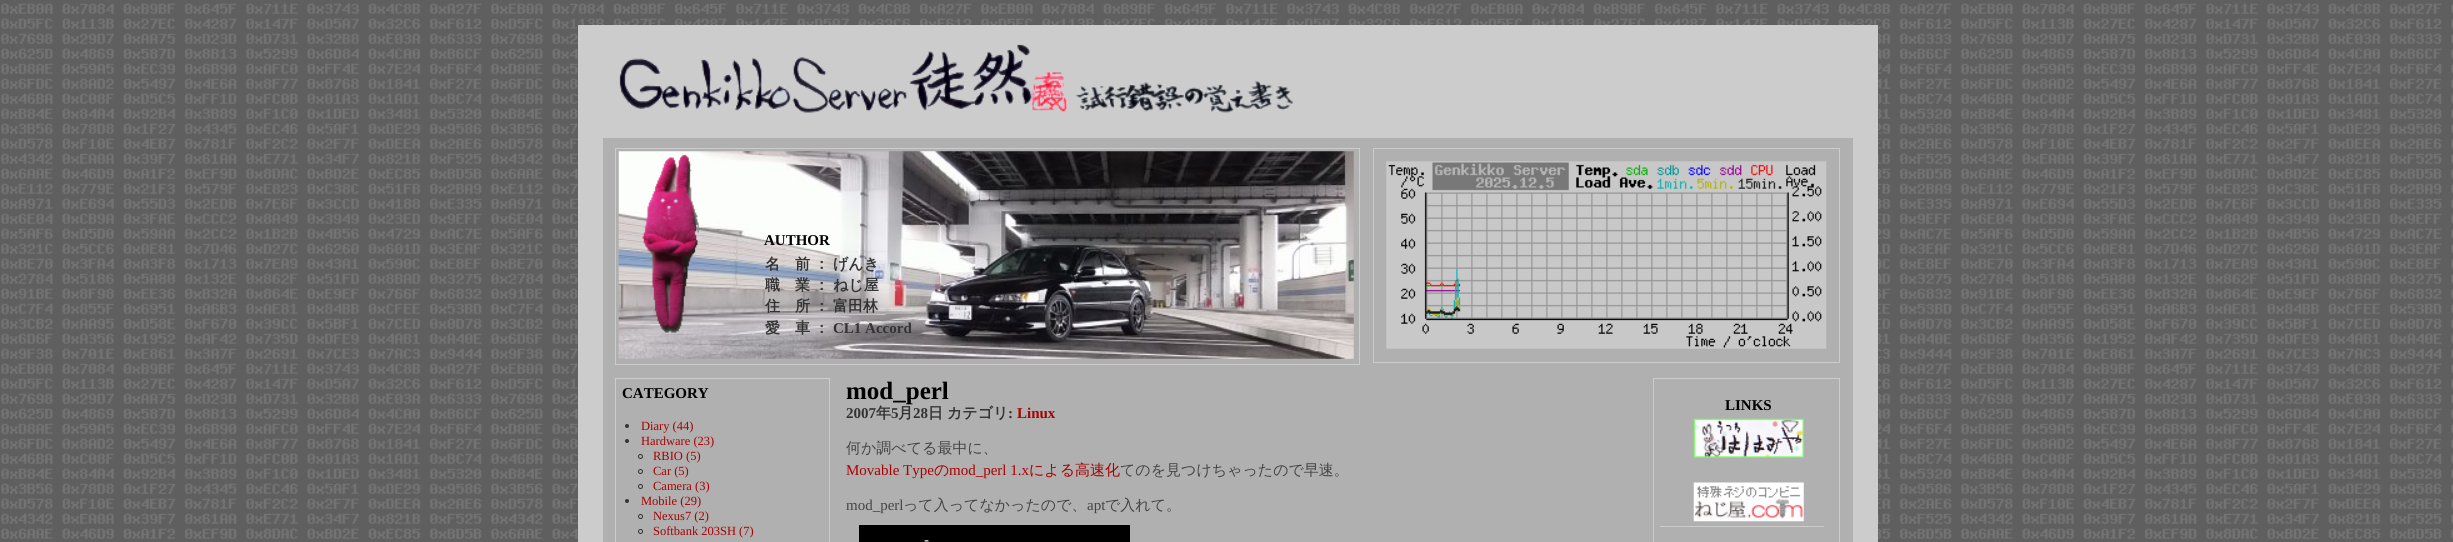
#include <cairo.h>
#include <math.h>
#include <stddef.h>

typedef struct { double x, y; const char *s; } line_t;
typedef struct { double x, y, w, h; unsigned color; } box_t;

static void ink(cairo_t *ctx, unsigned color) {
    cairo_set_source_rgb(ctx, (color >> 16) / 255.0, (color >> 8 & 255) / 255.0, (color & 255) / 255.0);
}

static void paste(cairo_t *ctx, const char *path, double x, double y, double w, double h) {
    cairo_surface_t *image = cairo_image_surface_create_from_png(path);
    cairo_save(ctx);
    cairo_set_source_surface(ctx, image, x, y);
    cairo_rectangle(ctx, x, y, w, h);
    cairo_fill(ctx);
    cairo_restore(ctx);
    cairo_surface_destroy(image);
}

int main(void) {
    cairo_surface_t *surface = cairo_image_surface_create(CAIRO_FORMAT_RGB24, 2453, 542);
    cairo_t *ctx = cairo_create(surface);
    cairo_font_options_t *options = cairo_font_options_create();
    cairo_font_options_set_hint_metrics(options, CAIRO_HINT_METRICS_OFF);
    cairo_font_options_set_hint_style(options, CAIRO_HINT_STYLE_NONE);
    cairo_set_font_options(ctx, options);
    cairo_set_miter_limit(ctx, 4);
    ink(ctx, 0xFFFFFF);
    cairo_paint(ctx);
    paste(ctx, "media/1.png", 0, 0, 2453, 542);
    {
        static const box_t items[] = {
            {603, 138, 1250, 404, 0xB0B0B0},
            {1853, 25, 25, 517, 0xCCCCCC},
            {578, 25, 25, 517, 0xCCCCCC},
            {603, 25, 1250, 113, 0xCCCCCC},
        };
        for (size_t i = 0; i < sizeof items / sizeof *items; i++) {
            ink(ctx, items[i].color);
            cairo_rectangle(ctx, items[i].x, items[i].y, items[i].w, items[i].h);
            cairo_fill(ctx);
        }
    }
    paste(ctx, "media/2.png", 619, 44, 449, 69);
    paste(ctx, "media/3.png", 1076, 81, 217, 32);
    cairo_rectangle(ctx, 615.5, 148.5, 744, 216);
    cairo_set_line_width(ctx, 1);
    cairo_stroke(ctx);
    paste(ctx, "media/4.png", 618, 151, 736, 208);
    cairo_rectangle(ctx, 1373.5, 148.5, 466, 214);
    cairo_stroke(ctx);
    paste(ctx, "media/5.png", 1386, 161, 441, 188);
    paste(ctx, "media/6.png", 642, 154, 57, 179);
    cairo_select_font_face(ctx, "Liberation Serif", CAIRO_FONT_SLANT_NORMAL, CAIRO_FONT_WEIGHT_BOLD);
    cairo_set_font_size(ctx, 15);
    ink(ctx, 0x000000);
    cairo_move_to(ctx, 764, 245);
    cairo_show_text(ctx, "AUTHOR");
    cairo_select_font_face(ctx, "WenQuanYi Zen Hei", CAIRO_FONT_SLANT_NORMAL, CAIRO_FONT_WEIGHT_BOLD);
    ink(ctx, 0x333333);
    {
        static const line_t items[] = {
            {765, 269, "名　前"},
            {814, 269, "："},
            {833, 269, "げんき"},
            {765, 290, "職　業"},
            {814, 290, "："},
            {833, 290, "ねじ屋"},
            {765, 311, "住　所"},
            {814, 311, "："},
            {833, 311, "富田林"},
            {765, 333, "愛　車"},
            {814, 333, "："},
        };
        for (size_t i = 0; i < sizeof items / sizeof *items; i++) {
            cairo_move_to(ctx, items[i].x, items[i].y);
            cairo_show_text(ctx, items[i].s);
        }
    }
    cairo_select_font_face(ctx, "Liberation Serif", CAIRO_FONT_SLANT_NORMAL, CAIRO_FONT_WEIGHT_BOLD);
    cairo_move_to(ctx, 833, 333);
    cairo_show_text(ctx, "CL1 Accord");
    cairo_rectangle(ctx, 615.5, 378.5, 214, 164);
    ink(ctx, 0xCCCCCC);
    cairo_stroke(ctx);
    ink(ctx, 0x000000);
    cairo_move_to(ctx, 622, 398);
    cairo_show_text(ctx, "CATEGORY");
    ink(ctx, 0x333333);
    cairo_new_path(ctx);
    cairo_arc(ctx, 627, 426, 2, 0, 2 * M_PI);
    cairo_fill(ctx);
    cairo_select_font_face(ctx, "Liberation Serif", CAIRO_FONT_SLANT_NORMAL, CAIRO_FONT_WEIGHT_NORMAL);
    cairo_set_font_size(ctx, 12.5);
    ink(ctx, 0xAA0000);
    cairo_move_to(ctx, 641, 430);
    cairo_show_text(ctx, "Diary (44)");
    ink(ctx, 0x333333);
    cairo_new_path(ctx);
    cairo_arc(ctx, 627, 441, 2, 0, 2 * M_PI);
    cairo_fill(ctx);
    ink(ctx, 0xAA0000);
    cairo_move_to(ctx, 641, 445);
    cairo_show_text(ctx, "Hardware (23)");
    cairo_new_path(ctx);
    cairo_arc(ctx, 640.5, 456.5, 2, 0, 2 * M_PI);
    ink(ctx, 0x333333);
    cairo_stroke(ctx);
    ink(ctx, 0xAA0000);
    cairo_move_to(ctx, 653, 460);
    cairo_show_text(ctx, "RBIO (5)");
    cairo_new_path(ctx);
    cairo_arc(ctx, 640.5, 471.5, 2, 0, 2 * M_PI);
    ink(ctx, 0x333333);
    cairo_stroke(ctx);
    ink(ctx, 0xAA0000);
    cairo_move_to(ctx, 653, 475);
    cairo_show_text(ctx, "Car (5)");
    cairo_new_path(ctx);
    cairo_arc(ctx, 640.5, 486.5, 2, 0, 2 * M_PI);
    ink(ctx, 0x333333);
    cairo_stroke(ctx);
    ink(ctx, 0xAA0000);
    cairo_move_to(ctx, 653, 490);
    cairo_show_text(ctx, "Camera (3)");
    ink(ctx, 0x333333);
    cairo_new_path(ctx);
    cairo_arc(ctx, 627, 501, 2, 0, 2 * M_PI);
    cairo_fill(ctx);
    ink(ctx, 0xAA0000);
    cairo_move_to(ctx, 641, 505);
    cairo_show_text(ctx, "Mobile (29)");
    cairo_new_path(ctx);
    cairo_arc(ctx, 640.5, 516.5, 2, 0, 2 * M_PI);
    ink(ctx, 0x333333);
    cairo_stroke(ctx);
    ink(ctx, 0xAA0000);
    cairo_move_to(ctx, 653, 520);
    cairo_show_text(ctx, "Nexus7 (2)");
    cairo_new_path(ctx);
    cairo_arc(ctx, 640.5, 531.5, 2, 0, 2 * M_PI);
    ink(ctx, 0x333333);
    cairo_stroke(ctx);
    ink(ctx, 0xAA0000);
    cairo_move_to(ctx, 653, 535);
    cairo_show_text(ctx, "Softbank 203SH (7)");
    cairo_select_font_face(ctx, "Liberation Serif", CAIRO_FONT_SLANT_NORMAL, CAIRO_FONT_WEIGHT_BOLD);
    cairo_set_font_size(ctx, 25);
    ink(ctx, 0x000000);
    cairo_move_to(ctx, 846, 399);
    cairo_show_text(ctx, "mod_perl");
    cairo_set_font_size(ctx, 15);
    ink(ctx, 0x333333);
    cairo_move_to(ctx, 846, 418);
    cairo_show_text(ctx, "2007");
    cairo_select_font_face(ctx, "WenQuanYi Zen Hei", CAIRO_FONT_SLANT_NORMAL, CAIRO_FONT_WEIGHT_BOLD);
    cairo_move_to(ctx, 876, 418);
    cairo_show_text(ctx, "年");
    cairo_select_font_face(ctx, "Liberation Serif", CAIRO_FONT_SLANT_NORMAL, CAIRO_FONT_WEIGHT_BOLD);
    cairo_move_to(ctx, 891, 418);
    cairo_show_text(ctx, "5");
    cairo_select_font_face(ctx, "WenQuanYi Zen Hei", CAIRO_FONT_SLANT_NORMAL, CAIRO_FONT_WEIGHT_BOLD);
    cairo_move_to(ctx, 898, 418);
    cairo_show_text(ctx, "月");
    cairo_select_font_face(ctx, "Liberation Serif", CAIRO_FONT_SLANT_NORMAL, CAIRO_FONT_WEIGHT_BOLD);
    cairo_move_to(ctx, 913, 418);
    cairo_show_text(ctx, "28");
    cairo_select_font_face(ctx, "WenQuanYi Zen Hei", CAIRO_FONT_SLANT_NORMAL, CAIRO_FONT_WEIGHT_BOLD);
    cairo_move_to(ctx, 928, 418);
    cairo_show_text(ctx, "日");
    cairo_move_to(ctx, 947, 418);
    cairo_show_text(ctx, "カテゴリ");
    cairo_select_font_face(ctx, "Liberation Serif", CAIRO_FONT_SLANT_NORMAL, CAIRO_FONT_WEIGHT_BOLD);
    cairo_move_to(ctx, 1008, 418);
    cairo_show_text(ctx, ":");
    ink(ctx, 0xAA0000);
    cairo_move_to(ctx, 1017, 418);
    cairo_show_text(ctx, "Linux");
    cairo_select_font_face(ctx, "WenQuanYi Zen Hei Medium", CAIRO_FONT_SLANT_NORMAL, CAIRO_FONT_WEIGHT_NORMAL);
    ink(ctx, 0x444444);
    cairo_move_to(ctx, 846, 453);
    cairo_show_text(ctx, "何か調べてる最中に、");
    cairo_select_font_face(ctx, "Liberation Serif", CAIRO_FONT_SLANT_NORMAL, CAIRO_FONT_WEIGHT_NORMAL);
    ink(ctx, 0xAA0000);
    cairo_move_to(ctx, 846, 475);
    cairo_show_text(ctx, "Movable Type");
    cairo_select_font_face(ctx, "WenQuanYi Zen Hei Medium", CAIRO_FONT_SLANT_NORMAL, CAIRO_FONT_WEIGHT_NORMAL);
    cairo_move_to(ctx, 934, 475);
    cairo_show_text(ctx, "の");
    cairo_select_font_face(ctx, "Liberation Serif", CAIRO_FONT_SLANT_NORMAL, CAIRO_FONT_WEIGHT_NORMAL);
    cairo_move_to(ctx, 949, 475);
    cairo_show_text(ctx, "mod_perl 1.x");
    cairo_select_font_face(ctx, "WenQuanYi Zen Hei Medium", CAIRO_FONT_SLANT_NORMAL, CAIRO_FONT_WEIGHT_NORMAL);
    cairo_move_to(ctx, 1029, 475);
    cairo_show_text(ctx, "による高速化");
    ink(ctx, 0x444444);
    cairo_move_to(ctx, 1120, 475);
    cairo_show_text(ctx, "てのを見つけちゃったので早速。");
    cairo_select_font_face(ctx, "Liberation Serif", CAIRO_FONT_SLANT_NORMAL, CAIRO_FONT_WEIGHT_NORMAL);
    cairo_move_to(ctx, 846, 510);
    cairo_show_text(ctx, "mod_perl");
    cairo_select_font_face(ctx, "WenQuanYi Zen Hei Medium", CAIRO_FONT_SLANT_NORMAL, CAIRO_FONT_WEIGHT_NORMAL);
    cairo_move_to(ctx, 903, 510);
    cairo_show_text(ctx, "って入ってなかったので、");
    cairo_select_font_face(ctx, "Liberation Serif", CAIRO_FONT_SLANT_NORMAL, CAIRO_FONT_WEIGHT_NORMAL);
    cairo_move_to(ctx, 1087, 510);
    cairo_show_text(ctx, "apt");
    cairo_select_font_face(ctx, "WenQuanYi Zen Hei Medium", CAIRO_FONT_SLANT_NORMAL, CAIRO_FONT_WEIGHT_NORMAL);
    cairo_move_to(ctx, 1105, 510);
    cairo_show_text(ctx, "で入れて。");
    ink(ctx, 0x000000);
    cairo_rectangle(ctx, 859, 525, 271, 17);
    cairo_fill(ctx);
    cairo_select_font_face(ctx, "DejaVu Sans Mono", CAIRO_FONT_SLANT_NORMAL, CAIRO_FONT_WEIGHT_NORMAL);
    ink(ctx, 0xFFFFFF);
    cairo_move_to(ctx, 922, 545);
    cairo_show_text(ctx, "-");
    cairo_rectangle(ctx, 1653.5, 378.5, 186, 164);
    ink(ctx, 0xCCCCCC);
    cairo_stroke(ctx);
    cairo_select_font_face(ctx, "Liberation Serif", CAIRO_FONT_SLANT_NORMAL, CAIRO_FONT_WEIGHT_BOLD);
    ink(ctx, 0x000000);
    cairo_move_to(ctx, 1725, 410);
    cairo_show_text(ctx, "LINKS");
    paste(ctx, "media/7.png", 1693, 418, 111, 40);
    paste(ctx, "media/8.png", 1693, 482, 111, 40);
    ink(ctx, 0xCCCCCC);
    cairo_rectangle(ctx, 1660, 526, 164, 1);
    cairo_fill(ctx);
    cairo_surface_write_to_png(surface, "image.png");
    cairo_font_options_destroy(options);
    cairo_destroy(ctx);
    cairo_surface_destroy(surface);
    return 0;
}
